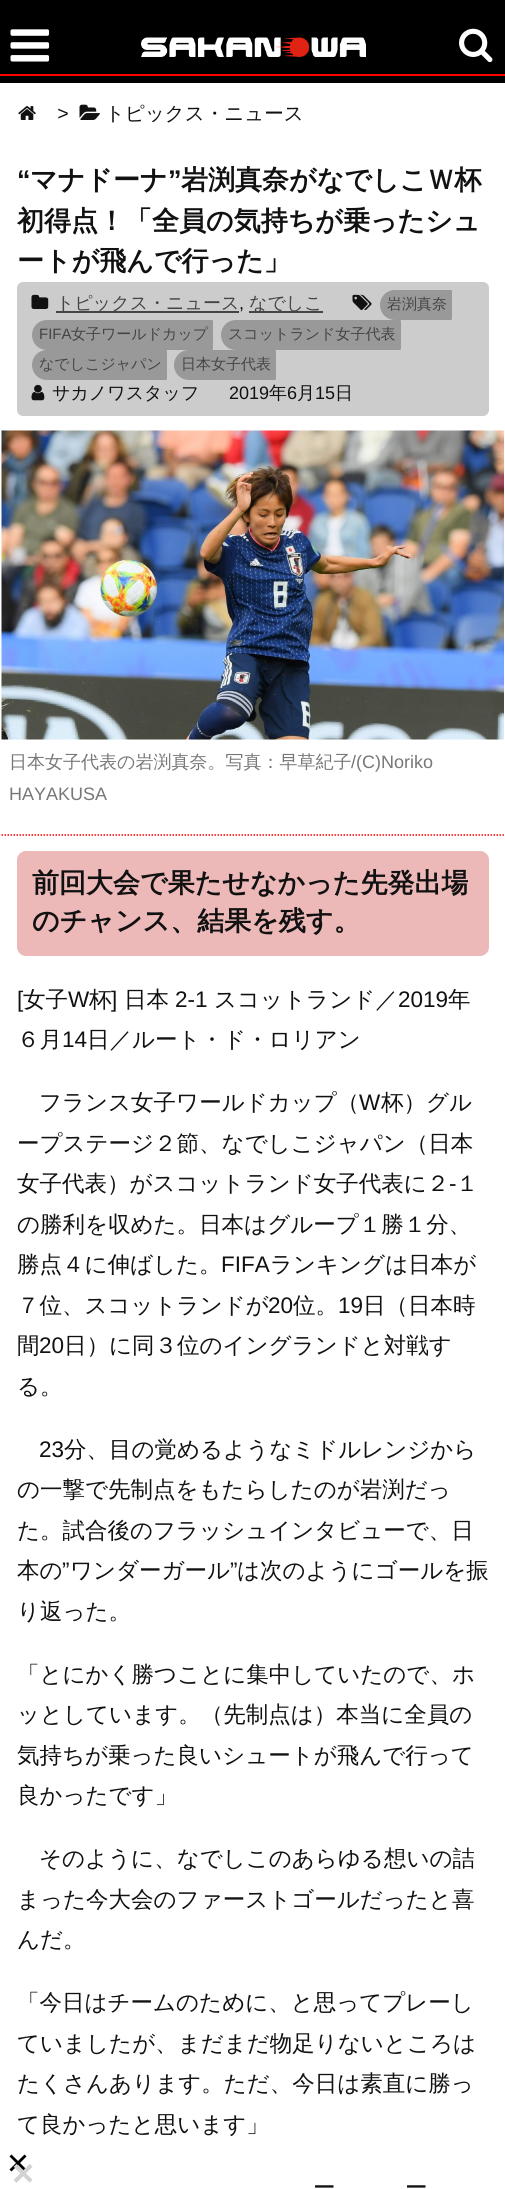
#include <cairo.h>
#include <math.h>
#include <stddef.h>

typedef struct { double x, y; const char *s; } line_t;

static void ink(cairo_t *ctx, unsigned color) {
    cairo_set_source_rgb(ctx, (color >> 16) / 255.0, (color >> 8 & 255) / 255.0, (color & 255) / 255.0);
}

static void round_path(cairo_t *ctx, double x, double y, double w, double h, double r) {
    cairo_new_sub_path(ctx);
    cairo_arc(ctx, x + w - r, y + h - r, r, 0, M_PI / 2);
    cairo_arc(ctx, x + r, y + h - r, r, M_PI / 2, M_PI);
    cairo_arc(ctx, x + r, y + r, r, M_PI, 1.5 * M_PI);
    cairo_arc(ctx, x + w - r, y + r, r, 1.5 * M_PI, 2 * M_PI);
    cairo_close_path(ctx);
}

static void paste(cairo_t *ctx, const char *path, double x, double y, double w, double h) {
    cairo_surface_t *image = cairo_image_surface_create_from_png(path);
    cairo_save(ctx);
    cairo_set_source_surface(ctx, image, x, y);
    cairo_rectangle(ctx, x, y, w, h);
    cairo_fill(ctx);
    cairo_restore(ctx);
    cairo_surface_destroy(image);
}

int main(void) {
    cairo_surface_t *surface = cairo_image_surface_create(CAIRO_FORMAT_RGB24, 505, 2189);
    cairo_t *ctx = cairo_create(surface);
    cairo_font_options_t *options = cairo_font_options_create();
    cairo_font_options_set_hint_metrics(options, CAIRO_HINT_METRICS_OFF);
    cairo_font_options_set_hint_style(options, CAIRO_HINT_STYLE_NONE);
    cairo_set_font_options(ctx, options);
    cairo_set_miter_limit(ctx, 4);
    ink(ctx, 0xFFFFFF);
    cairo_paint(ctx);
    ink(ctx, 0x000000);
    cairo_rectangle(ctx, 0, 0, 505, 83);
    cairo_fill(ctx);
    ink(ctx, 0xFE0000);
    cairo_rectangle(ctx, 0, 74, 505, 2);
    cairo_fill(ctx);
    paste(ctx, "media/1.png", 10, 29, 40, 33);
    paste(ctx, "media/2.png", 459, 28, 34, 35);
    paste(ctx, "media/3.png", 141, 37, 225, 20);
    paste(ctx, "media/4.png", 18, 106, 18, 14);
    cairo_select_font_face(ctx, "Liberation Sans", CAIRO_FONT_SLANT_ITALIC, CAIRO_FONT_WEIGHT_NORMAL);
    cairo_set_font_size(ctx, 19.5);
    ink(ctx, 0x111111);
    cairo_move_to(ctx, 57, 120);
    cairo_show_text(ctx, ">");
    paste(ctx, "media/5.png", 79, 104, 21, 16);
    cairo_select_font_face(ctx, "WenQuanYi Zen Hei Medium", CAIRO_FONT_SLANT_NORMAL, CAIRO_FONT_WEIGHT_NORMAL);
    cairo_move_to(ctx, 105, 120);
    cairo_show_text(ctx, "トピックス・ニュース");
    cairo_select_font_face(ctx, "Liberation Sans", CAIRO_FONT_SLANT_NORMAL, CAIRO_FONT_WEIGHT_BOLD);
    cairo_set_font_size(ctx, 27);
    cairo_move_to(ctx, 17, 189);
    cairo_show_text(ctx, "“");
    cairo_select_font_face(ctx, "WenQuanYi Zen Hei", CAIRO_FONT_SLANT_NORMAL, CAIRO_FONT_WEIGHT_BOLD);
    cairo_move_to(ctx, 30, 189);
    cairo_show_text(ctx, "マナドーナ");
    cairo_select_font_face(ctx, "Liberation Sans", CAIRO_FONT_SLANT_NORMAL, CAIRO_FONT_WEIGHT_BOLD);
    cairo_move_to(ctx, 168, 189);
    cairo_show_text(ctx, "”");
    cairo_select_font_face(ctx, "WenQuanYi Zen Hei", CAIRO_FONT_SLANT_NORMAL, CAIRO_FONT_WEIGHT_BOLD);
    {
        static const line_t items[] = {
            {181, 189, "岩渕真奈がなでしこＷ杯"},
            {17, 230, "初得点！「全員の気持ちが乗ったシュ"},
            {17, 270, "ートが飛んで行った」"},
        };
        for (size_t i = 0; i < sizeof items / sizeof *items; i++) {
            cairo_move_to(ctx, items[i].x, items[i].y);
            cairo_show_text(ctx, items[i].s);
        }
    }
    ink(ctx, 0xCCCCCC);
    round_path(ctx, 17, 282, 472, 134, 6);
    cairo_fill(ctx);
    paste(ctx, "media/6.png", 31, 294, 18, 15);
    ink(ctx, 0x444444);
    cairo_rectangle(ctx, 56, 311, 183, 2);
    cairo_fill(ctx);
    cairo_select_font_face(ctx, "WenQuanYi Zen Hei Medium", CAIRO_FONT_SLANT_NORMAL, CAIRO_FONT_WEIGHT_NORMAL);
    cairo_set_font_size(ctx, 18);
    cairo_move_to(ctx, 56, 309);
    cairo_show_text(ctx, "トピックス・ニュース");
    cairo_select_font_face(ctx, "Liberation Sans", CAIRO_FONT_SLANT_NORMAL, CAIRO_FONT_WEIGHT_NORMAL);
    ink(ctx, 0x111111);
    cairo_move_to(ctx, 239, 309);
    cairo_show_text(ctx, ",");
    ink(ctx, 0x444444);
    cairo_rectangle(ctx, 249, 311, 74, 2);
    cairo_fill(ctx);
    cairo_select_font_face(ctx, "WenQuanYi Zen Hei Medium", CAIRO_FONT_SLANT_NORMAL, CAIRO_FONT_WEIGHT_NORMAL);
    cairo_move_to(ctx, 249, 309);
    cairo_show_text(ctx, "なでしこ");
    paste(ctx, "media/7.png", 352, 294, 20, 17);
    ink(ctx, 0x999999);
    cairo_new_path(ctx);
    cairo_move_to(ctx, 395, 290);
    cairo_line_to(ctx, 450.5, 290);
    cairo_curve_to(ctx, 451.5, 290, 452, 290.5, 452, 291.5);
    cairo_line_to(ctx, 452, 318.5);
    cairo_curve_to(ctx, 452, 319.5, 451.5, 320, 450.5, 320);
    cairo_line_to(ctx, 395, 320);
    cairo_curve_to(ctx, 386.5, 320, 380, 313.5, 380, 305);
    cairo_curve_to(ctx, 380, 296.5, 386.5, 290, 395, 290);
    cairo_close_path(ctx);
    cairo_fill(ctx);
    cairo_set_font_size(ctx, 15);
    ink(ctx, 0x444444);
    cairo_move_to(ctx, 387, 309);
    cairo_show_text(ctx, "岩渕真奈");
    ink(ctx, 0x999999);
    cairo_new_path(ctx);
    cairo_move_to(ctx, 47, 320);
    cairo_line_to(ctx, 211.5, 320);
    cairo_curve_to(ctx, 212.5, 320, 213, 320.5, 213, 321.5);
    cairo_line_to(ctx, 213, 348.5);
    cairo_curve_to(ctx, 213, 349.5, 212.5, 350, 211.5, 350);
    cairo_line_to(ctx, 47, 350);
    cairo_curve_to(ctx, 38.5, 350, 32, 343.5, 32, 335);
    cairo_curve_to(ctx, 32, 326.5, 38.5, 320, 47, 320);
    cairo_close_path(ctx);
    cairo_fill(ctx);
    cairo_select_font_face(ctx, "Liberation Sans", CAIRO_FONT_SLANT_NORMAL, CAIRO_FONT_WEIGHT_NORMAL);
    ink(ctx, 0x444444);
    cairo_move_to(ctx, 39, 339);
    cairo_show_text(ctx, "FIFA");
    cairo_select_font_face(ctx, "WenQuanYi Zen Hei Medium", CAIRO_FONT_SLANT_NORMAL, CAIRO_FONT_WEIGHT_NORMAL);
    cairo_move_to(ctx, 71, 339);
    cairo_show_text(ctx, "女子ワールドカップ");
    ink(ctx, 0x999999);
    cairo_new_path(ctx);
    cairo_move_to(ctx, 236, 320);
    cairo_line_to(ctx, 399.5, 320);
    cairo_curve_to(ctx, 400.5, 320, 401, 320.5, 401, 321.5);
    cairo_line_to(ctx, 401, 348.5);
    cairo_curve_to(ctx, 401, 349.5, 400.5, 350, 399.5, 350);
    cairo_line_to(ctx, 236, 350);
    cairo_curve_to(ctx, 227.5, 350, 221, 343.5, 221, 335);
    cairo_curve_to(ctx, 221, 326.5, 227.5, 320, 236, 320);
    cairo_close_path(ctx);
    cairo_fill(ctx);
    ink(ctx, 0x444444);
    cairo_move_to(ctx, 228, 339);
    cairo_show_text(ctx, "スコットランド女子代表");
    ink(ctx, 0x999999);
    cairo_new_path(ctx);
    cairo_move_to(ctx, 47, 350);
    cairo_line_to(ctx, 165.5, 350);
    cairo_curve_to(ctx, 166.5, 350, 167, 350.5, 167, 351.5);
    cairo_line_to(ctx, 167, 378.5);
    cairo_curve_to(ctx, 167, 379.5, 166.5, 380, 165.5, 380);
    cairo_line_to(ctx, 47, 380);
    cairo_curve_to(ctx, 38.5, 380, 32, 373.5, 32, 365);
    cairo_curve_to(ctx, 32, 356.5, 38.5, 350, 47, 350);
    cairo_close_path(ctx);
    cairo_fill(ctx);
    ink(ctx, 0x444444);
    cairo_move_to(ctx, 39, 369);
    cairo_show_text(ctx, "なでしこジャパン");
    ink(ctx, 0x999999);
    cairo_new_path(ctx);
    cairo_move_to(ctx, 189, 350);
    cairo_line_to(ctx, 274.5, 350);
    cairo_curve_to(ctx, 275.5, 350, 276, 350.5, 276, 351.5);
    cairo_line_to(ctx, 276, 378.5);
    cairo_curve_to(ctx, 276, 379.5, 275.5, 380, 274.5, 380);
    cairo_line_to(ctx, 189, 380);
    cairo_curve_to(ctx, 180.5, 380, 174, 373.5, 174, 365);
    cairo_curve_to(ctx, 174, 356.5, 180.5, 350, 189, 350);
    cairo_close_path(ctx);
    cairo_fill(ctx);
    ink(ctx, 0x444444);
    cairo_move_to(ctx, 181, 369);
    cairo_show_text(ctx, "日本女子代表");
    paste(ctx, "media/8.png", 31, 384, 14, 17);
    cairo_set_font_size(ctx, 18);
    ink(ctx, 0x111111);
    cairo_move_to(ctx, 52, 399);
    cairo_show_text(ctx, "サカノワスタッフ");
    cairo_select_font_face(ctx, "Liberation Sans", CAIRO_FONT_SLANT_NORMAL, CAIRO_FONT_WEIGHT_NORMAL);
    cairo_move_to(ctx, 229, 399);
    cairo_show_text(ctx, "2019");
    cairo_select_font_face(ctx, "WenQuanYi Zen Hei Medium", CAIRO_FONT_SLANT_NORMAL, CAIRO_FONT_WEIGHT_NORMAL);
    cairo_move_to(ctx, 269, 399);
    cairo_show_text(ctx, "年");
    cairo_select_font_face(ctx, "Liberation Sans", CAIRO_FONT_SLANT_NORMAL, CAIRO_FONT_WEIGHT_NORMAL);
    cairo_move_to(ctx, 287, 399);
    cairo_show_text(ctx, "6");
    cairo_select_font_face(ctx, "WenQuanYi Zen Hei Medium", CAIRO_FONT_SLANT_NORMAL, CAIRO_FONT_WEIGHT_NORMAL);
    cairo_move_to(ctx, 297, 399);
    cairo_show_text(ctx, "月");
    cairo_select_font_face(ctx, "Liberation Sans", CAIRO_FONT_SLANT_NORMAL, CAIRO_FONT_WEIGHT_NORMAL);
    cairo_move_to(ctx, 315, 399);
    cairo_show_text(ctx, "15");
    cairo_select_font_face(ctx, "WenQuanYi Zen Hei Medium", CAIRO_FONT_SLANT_NORMAL, CAIRO_FONT_WEIGHT_NORMAL);
    cairo_move_to(ctx, 335, 399);
    cairo_show_text(ctx, "日");
    paste(ctx, "media/9.png", 1, 430, 503, 310);
    ink(ctx, 0x777777);
    cairo_move_to(ctx, 9, 768);
    cairo_show_text(ctx, "日本女子代表の岩渕真奈。写真：早草紀子");
    cairo_select_font_face(ctx, "Liberation Sans", CAIRO_FONT_SLANT_NORMAL, CAIRO_FONT_WEIGHT_NORMAL);
    cairo_move_to(ctx, 351, 768);
    cairo_show_text(ctx, "/(C)Noriko");
    cairo_move_to(ctx, 9, 800);
    cairo_show_text(ctx, "HAYAKUSA");
    cairo_new_path(ctx);
    cairo_move_to(ctx, 1.5, 835);
    cairo_line_to(ctx, 504, 835);
    ink(ctx, 0xFE0000);
    cairo_set_line_width(ctx, 1.5);
    cairo_set_dash(ctx, (double[]){1.5, 1.5}, 2, 0);
    cairo_stroke(ctx);
    ink(ctx, 0xEDB8B8);
    round_path(ctx, 17, 851, 472, 105, 9);
    cairo_fill(ctx);
    cairo_select_font_face(ctx, "WenQuanYi Zen Hei", CAIRO_FONT_SLANT_NORMAL, CAIRO_FONT_WEIGHT_BOLD);
    cairo_set_font_size(ctx, 27);
    ink(ctx, 0x111111);
    cairo_move_to(ctx, 32, 892);
    cairo_show_text(ctx, "前回大会で果たせなかった先発出場");
    cairo_move_to(ctx, 32, 930);
    cairo_show_text(ctx, "のチャンス、結果を残す。");
    cairo_select_font_face(ctx, "Liberation Sans", CAIRO_FONT_SLANT_NORMAL, CAIRO_FONT_WEIGHT_NORMAL);
    cairo_set_font_size(ctx, 22.5);
    cairo_move_to(ctx, 17, 1007);
    cairo_show_text(ctx, "[");
    cairo_select_font_face(ctx, "WenQuanYi Zen Hei Medium", CAIRO_FONT_SLANT_NORMAL, CAIRO_FONT_WEIGHT_NORMAL);
    cairo_move_to(ctx, 23, 1007);
    cairo_show_text(ctx, "女子");
    cairo_select_font_face(ctx, "Liberation Sans", CAIRO_FONT_SLANT_NORMAL, CAIRO_FONT_WEIGHT_NORMAL);
    cairo_move_to(ctx, 68, 1007);
    cairo_show_text(ctx, "W");
    cairo_select_font_face(ctx, "WenQuanYi Zen Hei Medium", CAIRO_FONT_SLANT_NORMAL, CAIRO_FONT_WEIGHT_NORMAL);
    cairo_move_to(ctx, 89, 1007);
    cairo_show_text(ctx, "杯");
    cairo_select_font_face(ctx, "Liberation Sans", CAIRO_FONT_SLANT_NORMAL, CAIRO_FONT_WEIGHT_NORMAL);
    cairo_move_to(ctx, 111, 1007);
    cairo_show_text(ctx, "]");
    cairo_select_font_face(ctx, "WenQuanYi Zen Hei Medium", CAIRO_FONT_SLANT_NORMAL, CAIRO_FONT_WEIGHT_NORMAL);
    cairo_move_to(ctx, 124, 1007);
    cairo_show_text(ctx, "日本");
    cairo_select_font_face(ctx, "Liberation Sans", CAIRO_FONT_SLANT_NORMAL, CAIRO_FONT_WEIGHT_NORMAL);
    cairo_move_to(ctx, 175, 1007);
    cairo_show_text(ctx, "2-1");
    cairo_select_font_face(ctx, "WenQuanYi Zen Hei Medium", CAIRO_FONT_SLANT_NORMAL, CAIRO_FONT_WEIGHT_NORMAL);
    cairo_move_to(ctx, 214, 1007);
    cairo_show_text(ctx, "スコットランド／");
    cairo_select_font_face(ctx, "Liberation Sans", CAIRO_FONT_SLANT_NORMAL, CAIRO_FONT_WEIGHT_NORMAL);
    cairo_move_to(ctx, 398, 1007);
    cairo_show_text(ctx, "2019");
    cairo_select_font_face(ctx, "WenQuanYi Zen Hei Medium", CAIRO_FONT_SLANT_NORMAL, CAIRO_FONT_WEIGHT_NORMAL);
    cairo_move_to(ctx, 448, 1007);
    cairo_show_text(ctx, "年");
    cairo_move_to(ctx, 17, 1047);
    cairo_show_text(ctx, "６月");
    cairo_select_font_face(ctx, "Liberation Sans", CAIRO_FONT_SLANT_NORMAL, CAIRO_FONT_WEIGHT_NORMAL);
    cairo_move_to(ctx, 62, 1047);
    cairo_show_text(ctx, "14");
    cairo_select_font_face(ctx, "WenQuanYi Zen Hei Medium", CAIRO_FONT_SLANT_NORMAL, CAIRO_FONT_WEIGHT_NORMAL);
    cairo_move_to(ctx, 87, 1047);
    cairo_show_text(ctx, "日／ルート・ド・ロリアン");
    cairo_move_to(ctx, 39, 1110);
    cairo_show_text(ctx, "フランス女子ワールドカップ（");
    cairo_select_font_face(ctx, "Liberation Sans", CAIRO_FONT_SLANT_NORMAL, CAIRO_FONT_WEIGHT_NORMAL);
    cairo_move_to(ctx, 359, 1110);
    cairo_show_text(ctx, "W");
    cairo_select_font_face(ctx, "WenQuanYi Zen Hei Medium", CAIRO_FONT_SLANT_NORMAL, CAIRO_FONT_WEIGHT_NORMAL);
    {
        static const line_t items[] = {
            {381, 1110, "杯）グル"},
            {17, 1151, "ープステージ２節、なでしこジャパン（日本"},
            {17, 1191, "女子代表）がスコットランド女子代表に２"},
        };
        for (size_t i = 0; i < sizeof items / sizeof *items; i++) {
            cairo_move_to(ctx, items[i].x, items[i].y);
            cairo_show_text(ctx, items[i].s);
        }
    }
    cairo_select_font_face(ctx, "Liberation Sans", CAIRO_FONT_SLANT_NORMAL, CAIRO_FONT_WEIGHT_NORMAL);
    cairo_move_to(ctx, 449, 1191);
    cairo_show_text(ctx, "-");
    cairo_select_font_face(ctx, "WenQuanYi Zen Hei Medium", CAIRO_FONT_SLANT_NORMAL, CAIRO_FONT_WEIGHT_NORMAL);
    {
        static const line_t items[] = {
            {456, 1191, "１"},
            {17, 1232, "の勝利を収めた。日本はグループ１勝１分、"},
            {17, 1272, "勝点４に伸ばした。"},
        };
        for (size_t i = 0; i < sizeof items / sizeof *items; i++) {
            cairo_move_to(ctx, items[i].x, items[i].y);
            cairo_show_text(ctx, items[i].s);
        }
    }
    cairo_select_font_face(ctx, "Liberation Sans", CAIRO_FONT_SLANT_NORMAL, CAIRO_FONT_WEIGHT_NORMAL);
    cairo_move_to(ctx, 221, 1272);
    cairo_show_text(ctx, "FIFA");
    cairo_select_font_face(ctx, "WenQuanYi Zen Hei Medium", CAIRO_FONT_SLANT_NORMAL, CAIRO_FONT_WEIGHT_NORMAL);
    cairo_move_to(ctx, 270, 1272);
    cairo_show_text(ctx, "ランキングは日本が");
    cairo_move_to(ctx, 17, 1313);
    cairo_show_text(ctx, "７位、スコットランドが");
    cairo_select_font_face(ctx, "Liberation Sans", CAIRO_FONT_SLANT_NORMAL, CAIRO_FONT_WEIGHT_NORMAL);
    cairo_move_to(ctx, 268, 1313);
    cairo_show_text(ctx, "20");
    cairo_select_font_face(ctx, "WenQuanYi Zen Hei Medium", CAIRO_FONT_SLANT_NORMAL, CAIRO_FONT_WEIGHT_NORMAL);
    cairo_move_to(ctx, 293, 1313);
    cairo_show_text(ctx, "位。");
    cairo_select_font_face(ctx, "Liberation Sans", CAIRO_FONT_SLANT_NORMAL, CAIRO_FONT_WEIGHT_NORMAL);
    cairo_move_to(ctx, 338, 1313);
    cairo_show_text(ctx, "19");
    cairo_select_font_face(ctx, "WenQuanYi Zen Hei Medium", CAIRO_FONT_SLANT_NORMAL, CAIRO_FONT_WEIGHT_NORMAL);
    cairo_move_to(ctx, 363, 1313);
    cairo_show_text(ctx, "日（日本時");
    cairo_move_to(ctx, 17, 1353);
    cairo_show_text(ctx, "間");
    cairo_select_font_face(ctx, "Liberation Sans", CAIRO_FONT_SLANT_NORMAL, CAIRO_FONT_WEIGHT_NORMAL);
    cairo_move_to(ctx, 39, 1353);
    cairo_show_text(ctx, "20");
    cairo_select_font_face(ctx, "WenQuanYi Zen Hei Medium", CAIRO_FONT_SLANT_NORMAL, CAIRO_FONT_WEIGHT_NORMAL);
    cairo_move_to(ctx, 64, 1353);
    cairo_show_text(ctx, "日）に同３位のイングランドと対戦す");
    cairo_move_to(ctx, 17, 1394);
    cairo_show_text(ctx, "る。");
    cairo_select_font_face(ctx, "Liberation Sans", CAIRO_FONT_SLANT_NORMAL, CAIRO_FONT_WEIGHT_NORMAL);
    cairo_move_to(ctx, 39, 1457);
    cairo_show_text(ctx, "23");
    cairo_select_font_face(ctx, "WenQuanYi Zen Hei Medium", CAIRO_FONT_SLANT_NORMAL, CAIRO_FONT_WEIGHT_NORMAL);
    {
        static const line_t items[] = {
            {64, 1457, "分、目の覚めるようなミドルレンジから"},
            {17, 1497, "の一撃で先制点をもたらしたのが岩渕だっ"},
            {17, 1538, "た。試合後のフラッシュインタビューで、日"},
            {17, 1578, "本の"},
        };
        for (size_t i = 0; i < sizeof items / sizeof *items; i++) {
            cairo_move_to(ctx, items[i].x, items[i].y);
            cairo_show_text(ctx, items[i].s);
        }
    }
    cairo_select_font_face(ctx, "Liberation Sans", CAIRO_FONT_SLANT_NORMAL, CAIRO_FONT_WEIGHT_NORMAL);
    cairo_move_to(ctx, 62, 1578);
    cairo_show_text(ctx, "”");
    cairo_select_font_face(ctx, "WenQuanYi Zen Hei Medium", CAIRO_FONT_SLANT_NORMAL, CAIRO_FONT_WEIGHT_NORMAL);
    cairo_move_to(ctx, 70, 1578);
    cairo_show_text(ctx, "ワンダーガール");
    cairo_select_font_face(ctx, "Liberation Sans", CAIRO_FONT_SLANT_NORMAL, CAIRO_FONT_WEIGHT_NORMAL);
    cairo_move_to(ctx, 230, 1578);
    cairo_show_text(ctx, "”");
    cairo_select_font_face(ctx, "WenQuanYi Zen Hei Medium", CAIRO_FONT_SLANT_NORMAL, CAIRO_FONT_WEIGHT_NORMAL);
    {
        static const line_t items[] = {
            {237, 1578, "は次のようにゴールを振"},
            {17, 1619, "り返った。"},
            {17, 1682, "「とにかく勝つことに集中していたので、ホ"},
            {17, 1722, "ッとしています。（先制点は）本当に全員の"},
            {17, 1763, "気持ちが乗った良いシュートが飛んで行って"},
            {17, 1803, "良かったです」"},
            {39, 1866, "そのように、なでしこのあらゆる想いの詰"},
            {17, 1907, "まった今大会のファーストゴールだったと喜"},
            {17, 1947, "んだ。"},
            {17, 2010, "「今日はチームのために、と思ってプレーし"},
            {17, 2051, "ていましたが、まだまだ物足りないところは"},
            {17, 2091, "たくさんあります。ただ、今日は素直に勝っ"},
            {17, 2132, "て良かったと思います」"},
            {313, 2195, "ー"},
            {405, 2195, "ー"},
        };
        for (size_t i = 0; i < sizeof items / sizeof *items; i++) {
            cairo_move_to(ctx, items[i].x, items[i].y);
            cairo_show_text(ctx, items[i].s);
        }
    }
    ink(ctx, 0x000000);
    cairo_new_path(ctx);
    cairo_move_to(ctx, 24.5, 2154.5);
    cairo_line_to(ctx, 26.5, 2156.5);
    cairo_line_to(ctx, 11.5, 2171.5);
    cairo_line_to(ctx, 9.5, 2169.5);
    cairo_close_path(ctx);
    cairo_fill(ctx);
    cairo_new_path(ctx);
    cairo_move_to(ctx, 9.5, 2156.5);
    cairo_line_to(ctx, 11.5, 2154.5);
    cairo_line_to(ctx, 26.5, 2169.5);
    cairo_line_to(ctx, 24.5, 2171.5);
    cairo_close_path(ctx);
    cairo_fill(ctx);
    cairo_select_font_face(ctx, "Liberation Sans", CAIRO_FONT_SLANT_NORMAL, CAIRO_FONT_WEIGHT_BOLD);
    cairo_set_font_size(ctx, 38);
    ink(ctx, 0xD3D3D3);
    cairo_move_to(ctx, 12, 2186);
    cairo_show_text(ctx, "×");
    cairo_surface_write_to_png(surface, "image.png");
    cairo_font_options_destroy(options);
    cairo_destroy(ctx);
    cairo_surface_destroy(surface);
    return 0;
}
